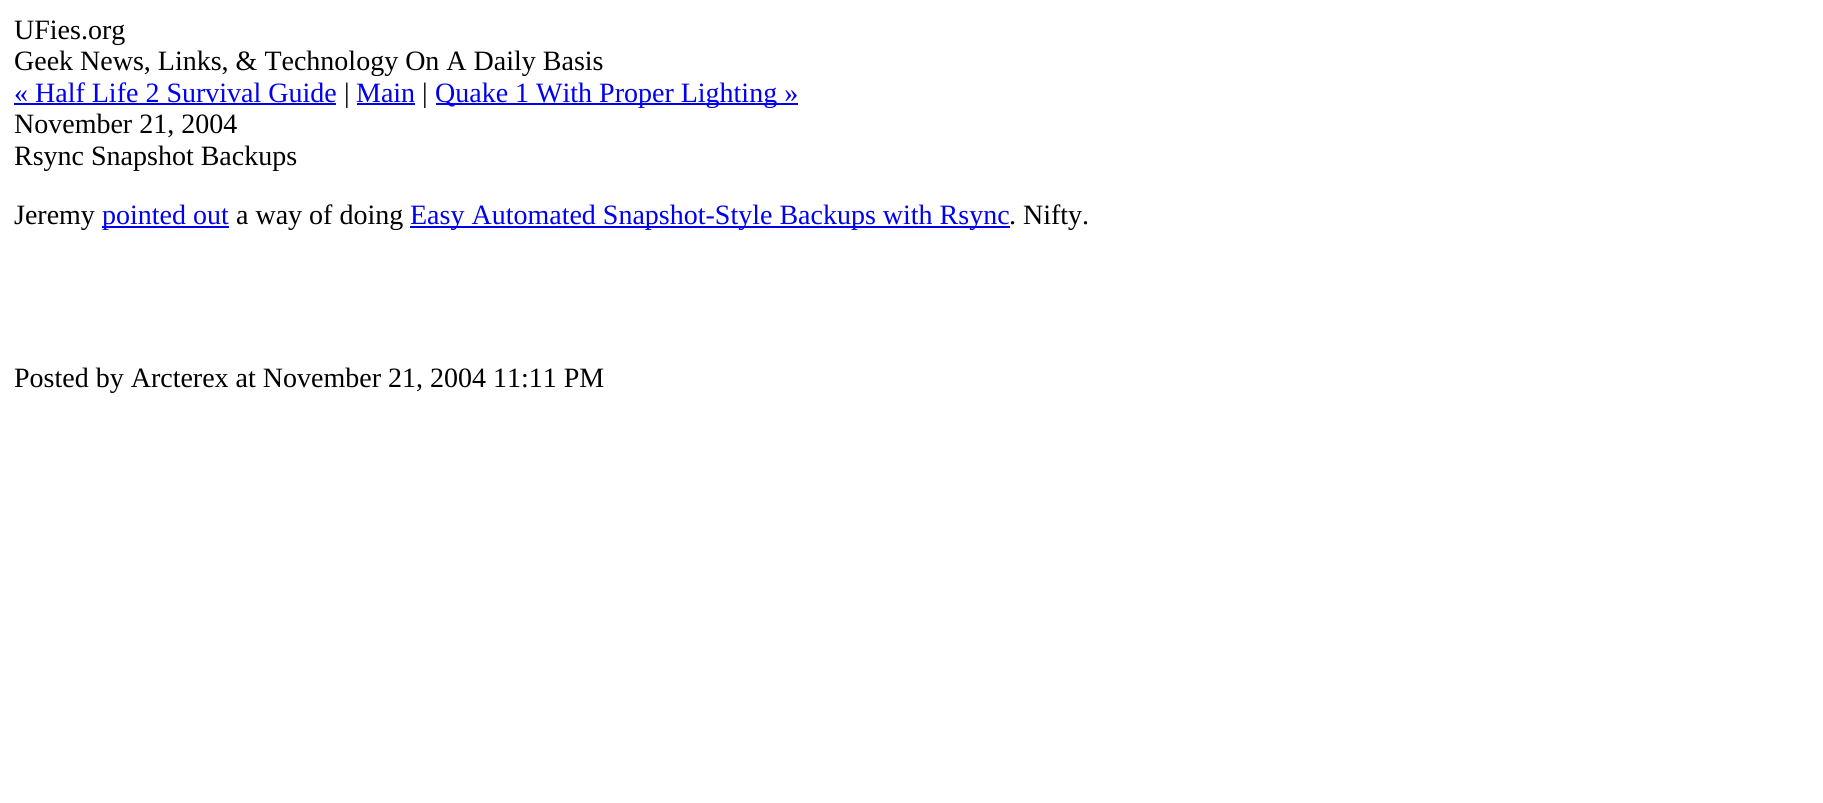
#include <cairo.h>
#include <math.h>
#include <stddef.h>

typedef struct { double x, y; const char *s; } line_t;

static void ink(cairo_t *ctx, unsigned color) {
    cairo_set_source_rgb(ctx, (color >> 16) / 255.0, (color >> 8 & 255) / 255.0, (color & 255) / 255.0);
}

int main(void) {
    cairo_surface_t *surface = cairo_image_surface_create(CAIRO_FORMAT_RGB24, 1823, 803);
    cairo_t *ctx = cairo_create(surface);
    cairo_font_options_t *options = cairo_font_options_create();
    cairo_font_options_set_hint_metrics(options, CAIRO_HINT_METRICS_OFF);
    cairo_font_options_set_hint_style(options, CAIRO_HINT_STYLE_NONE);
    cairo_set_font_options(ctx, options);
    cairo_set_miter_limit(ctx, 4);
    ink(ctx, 0xFFFFFF);
    cairo_paint(ctx);
    cairo_select_font_face(ctx, "Liberation Serif", CAIRO_FONT_SLANT_NORMAL, CAIRO_FONT_WEIGHT_NORMAL);
    cairo_set_font_size(ctx, 28);
    ink(ctx, 0x000000);
    cairo_move_to(ctx, 14, 39);
    cairo_show_text(ctx, "UFies.org");
    cairo_move_to(ctx, 14, 70);
    cairo_show_text(ctx, "Geek News, Links, & Technology On A Daily Basis");
    ink(ctx, 0x0000EE);
    cairo_move_to(ctx, 14, 102);
    cairo_show_text(ctx, "« Half Life 2 Survival Guide");
    cairo_rectangle(ctx, 14, 103, 322, 2);
    cairo_fill(ctx);
    ink(ctx, 0x000000);
    cairo_move_to(ctx, 344, 102);
    cairo_show_text(ctx, "|");
    ink(ctx, 0x0000EE);
    cairo_move_to(ctx, 356, 102);
    cairo_show_text(ctx, "Main");
    cairo_rectangle(ctx, 357, 103, 58, 2);
    cairo_fill(ctx);
    ink(ctx, 0x000000);
    cairo_move_to(ctx, 422, 102);
    cairo_show_text(ctx, "|");
    ink(ctx, 0x0000EE);
    cairo_rectangle(ctx, 436, 103, 362, 2);
    cairo_fill(ctx);
    cairo_move_to(ctx, 435, 102);
    cairo_show_text(ctx, "Quake 1 With Proper Lighting »");
    ink(ctx, 0x000000);
    {
        static const line_t items[] = {
            {14, 133, "November 21, 2004"},
            {14, 165, "Rsync Snapshot Backups"},
            {14, 224, "Jeremy"},
        };
        for (size_t i = 0; i < sizeof items / sizeof *items; i++) {
            cairo_move_to(ctx, items[i].x, items[i].y);
            cairo_show_text(ctx, items[i].s);
        }
    }
    ink(ctx, 0x0000EE);
    cairo_rectangle(ctx, 102, 226, 127, 2);
    cairo_fill(ctx);
    cairo_move_to(ctx, 102, 224);
    cairo_show_text(ctx, "pointed out");
    ink(ctx, 0x000000);
    cairo_move_to(ctx, 236, 224);
    cairo_show_text(ctx, "a way of doing");
    ink(ctx, 0x0000EE);
    cairo_rectangle(ctx, 410, 226, 600, 2);
    cairo_fill(ctx);
    cairo_move_to(ctx, 410, 224);
    cairo_show_text(ctx, "Easy Automated Snapshot-Style Backups with Rsync");
    ink(ctx, 0x000000);
    cairo_move_to(ctx, 1009, 224);
    cairo_show_text(ctx, ". Nifty.");
    cairo_move_to(ctx, 14, 387);
    cairo_show_text(ctx, "Posted by Arcterex at November 21, 2004 11:11 PM");
    cairo_surface_write_to_png(surface, "image.png");
    cairo_font_options_destroy(options);
    cairo_destroy(ctx);
    cairo_surface_destroy(surface);
    return 0;
}
